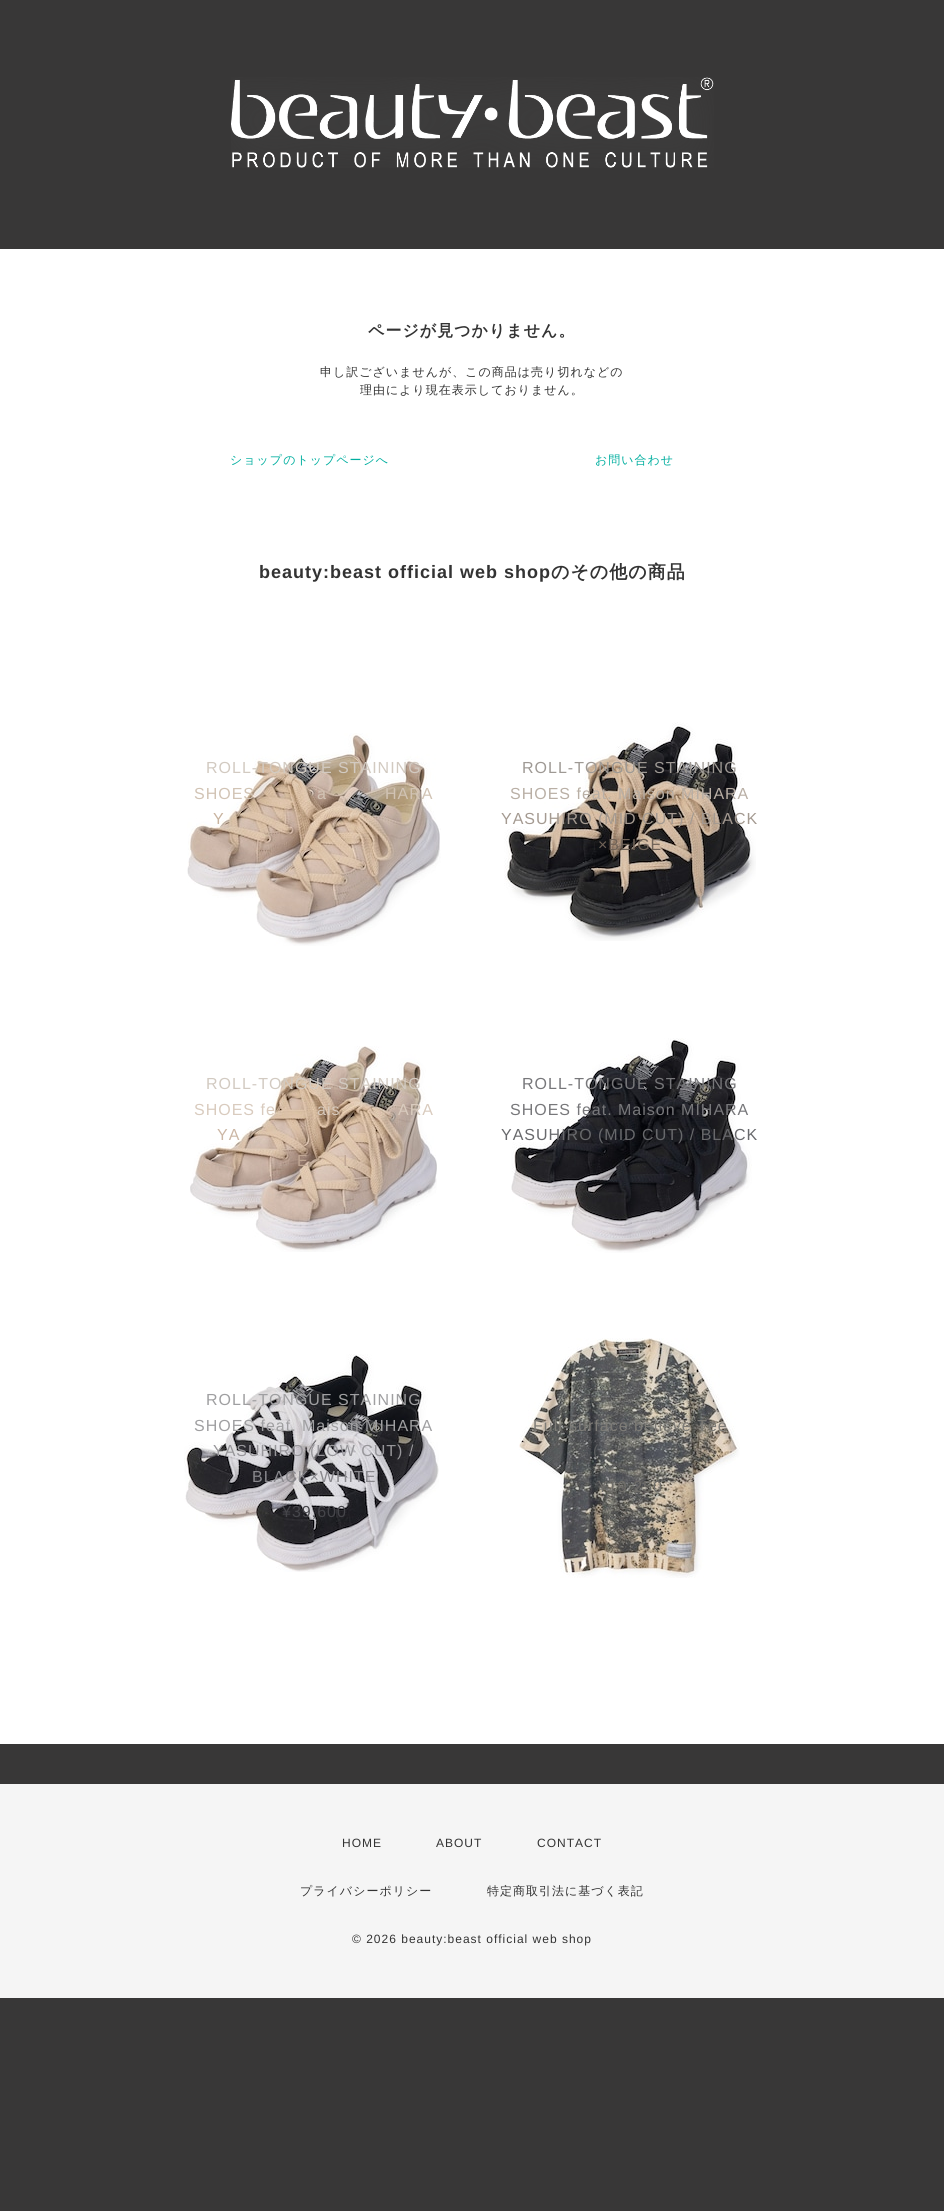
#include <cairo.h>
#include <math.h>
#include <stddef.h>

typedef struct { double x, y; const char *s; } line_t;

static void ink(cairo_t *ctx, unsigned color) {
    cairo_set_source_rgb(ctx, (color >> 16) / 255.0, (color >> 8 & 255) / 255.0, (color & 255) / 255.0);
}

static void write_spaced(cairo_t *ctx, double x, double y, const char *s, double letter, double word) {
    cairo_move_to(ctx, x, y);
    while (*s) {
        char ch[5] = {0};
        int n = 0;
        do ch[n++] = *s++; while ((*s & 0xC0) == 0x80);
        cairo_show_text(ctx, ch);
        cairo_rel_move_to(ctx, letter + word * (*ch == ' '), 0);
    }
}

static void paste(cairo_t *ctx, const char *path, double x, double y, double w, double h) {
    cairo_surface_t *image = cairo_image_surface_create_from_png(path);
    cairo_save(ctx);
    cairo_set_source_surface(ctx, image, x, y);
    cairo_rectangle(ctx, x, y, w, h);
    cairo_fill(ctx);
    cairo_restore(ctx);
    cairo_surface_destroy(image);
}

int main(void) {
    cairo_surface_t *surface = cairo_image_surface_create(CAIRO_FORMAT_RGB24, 944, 2211);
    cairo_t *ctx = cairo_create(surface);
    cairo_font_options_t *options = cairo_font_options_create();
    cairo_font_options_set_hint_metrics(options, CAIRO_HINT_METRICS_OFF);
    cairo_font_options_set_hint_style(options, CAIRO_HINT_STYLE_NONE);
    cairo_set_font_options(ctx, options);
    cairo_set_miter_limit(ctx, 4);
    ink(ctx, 0x383737);
    cairo_paint(ctx);
    paste(ctx, "media/1.png", 231, 77, 483, 91);
    ink(ctx, 0xFFFFFF);
    cairo_rectangle(ctx, 0, 249, 944, 1495);
    cairo_fill(ctx);
    cairo_select_font_face(ctx, "WenQuanYi Zen Hei", CAIRO_FONT_SLANT_NORMAL, CAIRO_FONT_WEIGHT_BOLD);
    cairo_set_font_size(ctx, 16);
    ink(ctx, 0x333333);
    write_spaced(ctx, 368, 336, "ページが見つかりません。", 1, 0);
    cairo_select_font_face(ctx, "WenQuanYi Zen Hei Medium", CAIRO_FONT_SLANT_NORMAL, CAIRO_FONT_WEIGHT_NORMAL);
    cairo_set_font_size(ctx, 12);
    write_spaced(ctx, 320, 376, "申し訳ございませんが、この商品は売り切れなどの", 1, 0);
    write_spaced(ctx, 360, 394, "理由により現在表示しておりません。", 1, 0);
    ink(ctx, 0x00AE9F);
    write_spaced(ctx, 230, 464, "ショップのトップページへ", 1, 0);
    write_spaced(ctx, 595, 464, "お問い合わせ", 1, 0);
    cairo_select_font_face(ctx, "Liberation Sans", CAIRO_FONT_SLANT_NORMAL, CAIRO_FONT_WEIGHT_BOLD);
    cairo_set_font_size(ctx, 18);
    ink(ctx, 0x333333);
    write_spaced(ctx, 259, 578, "beauty:beast official web shop", 1, 0);
    cairo_select_font_face(ctx, "WenQuanYi Zen Hei", CAIRO_FONT_SLANT_NORMAL, CAIRO_FONT_WEIGHT_BOLD);
    write_spaced(ctx, 551, 578, "のその他の商品", 1, 0);
    paste(ctx, "media/2.png", 187, 733, 254, 213);
    cairo_select_font_face(ctx, "Liberation Sans", CAIRO_FONT_SLANT_NORMAL, CAIRO_FONT_WEIGHT_NORMAL);
    cairo_set_font_size(ctx, 16);
    ink(ctx, 0xD2CAC1);
    write_spaced(ctx, 206, 773, "ROLL-TONGUE STAINING", 1, 0);
    ink(ctx, 0xD1C3B4);
    {
        static const line_t items[] = {
            {194, 799, "SHOES"},
            {317, 799, "a"},
            {385, 799, "HARA"},
        };
        for (size_t i = 0; i < sizeof items / sizeof *items; i++) {
            write_spaced(ctx, items[i].x, items[i].y, items[i].s, 1, 0);
        }
    }
    ink(ctx, 0xC8B39F);
    write_spaced(ctx, 213, 824, "Y", 1, 0);
    paste(ctx, "media/3.png", 504, 722, 252, 219);
    ink(ctx, 0x9E9994);
    write_spaced(ctx, 522, 773, "ROLL-TONGUE STAINING", 1, 0);
    ink(ctx, 0xB9AFA5);
    write_spaced(ctx, 510, 799, "SHOES feat. Maison MIHARA", 1, 0);
    ink(ctx, 0xA49A91);
    write_spaced(ctx, 501, 824, "YASUHIRO (MID CUT) / BLACK", 1, 0);
    ink(ctx, 0x706358);
    write_spaced(ctx, 598, 850, "×BEIGE", 1, 0);
    paste(ctx, "media/4.png", 190, 1046, 247, 206);
    ink(ctx, 0xD2CAC1);
    write_spaced(ctx, 206, 1089, "ROLL-TONGUE STAINING", 1, 0);
    ink(ctx, 0xD9CBBE);
    {
        static const line_t items[] = {
            {194, 1115, "SHOES fe"},
            {317, 1115, "ais"},
            {398, 1115, "ARA"},
        };
        for (size_t i = 0; i < sizeof items / sizeof *items; i++) {
            write_spaced(ctx, items[i].x, items[i].y, items[i].s, 1, 0);
        }
    }
    ink(ctx, 0xCCB7A5);
    write_spaced(ctx, 217, 1140, "YA", 1, 0);
    ink(ctx, 0xC0A794);
    write_spaced(ctx, 297, 1166, "E", 1, 0);
    write_spaced(ctx, 343, 1166, "I", 1, 0);
    paste(ctx, "media/5.png", 511, 1038, 241, 215);
    ink(ctx, 0x77777A);
    write_spaced(ctx, 522, 1089, "ROLL-TONGUE STAINING", 1, 0);
    write_spaced(ctx, 510, 1115, "SHOES feat. Maison MIHARA", 1, 0);
    ink(ctx, 0x68696C);
    write_spaced(ctx, 501, 1140, "YASUHIRO (MID CUT) / BLACK", 1, 0);
    paste(ctx, "media/6.png", 184, 1354, 255, 218);
    ink(ctx, 0x9F9FA1);
    write_spaced(ctx, 206, 1405, "ROLL-TONGUE STAINING", 1, 0);
    write_spaced(ctx, 194, 1431, "SHOES feat. Maison MIHARA", 1, 0);
    ink(ctx, 0x97969A);
    write_spaced(ctx, 213, 1456, "YASUHIRO (LOW CUT) /", 1, 0);
    ink(ctx, 0x89888D);
    write_spaced(ctx, 252, 1482, "BLACK×WHITE", 1, 0);
    ink(ctx, 0x45454A);
    write_spaced(ctx, 282, 1517, "¥39,600", 1, 0);
    paste(ctx, "media/7.png", 519, 1338, 221, 240);
    ink(ctx, 0x7D7B76);
    write_spaced(ctx, 533, 1431, "Full-surface believe Tee", 1, 0);
    ink(ctx, 0x5D5E60);
    write_spaced(ctx, 593, 1456, "(", 1, 0);
    ink(ctx, 0x6E6C68);
    write_spaced(ctx, 598, 1492, "¥19,250", 1, 0);
    ink(ctx, 0xF5F5F5);
    cairo_rectangle(ctx, 0, 1784, 944, 214);
    cairo_fill(ctx);
    cairo_set_font_size(ctx, 12);
    ink(ctx, 0x333333);
    {
        static const line_t items[] = {
            {342, 1847, "HOME"},
            {436, 1847, "ABOUT"},
            {537, 1847, "CONTACT"},
        };
        for (size_t i = 0; i < sizeof items / sizeof *items; i++) {
            write_spaced(ctx, items[i].x, items[i].y, items[i].s, 1, 0);
        }
    }
    cairo_select_font_face(ctx, "WenQuanYi Zen Hei Medium", CAIRO_FONT_SLANT_NORMAL, CAIRO_FONT_WEIGHT_NORMAL);
    write_spaced(ctx, 300, 1895, "プライバシーポリシー", 1, 0);
    write_spaced(ctx, 487, 1895, "特定商取引法に基づく表記", 1, 0);
    cairo_select_font_face(ctx, "Liberation Sans", CAIRO_FONT_SLANT_NORMAL, CAIRO_FONT_WEIGHT_NORMAL);
    write_spaced(ctx, 352, 1943, "© 2026 beauty:beast official web shop", 1, 0);
    cairo_surface_write_to_png(surface, "image.png");
    cairo_font_options_destroy(options);
    cairo_destroy(ctx);
    cairo_surface_destroy(surface);
    return 0;
}
